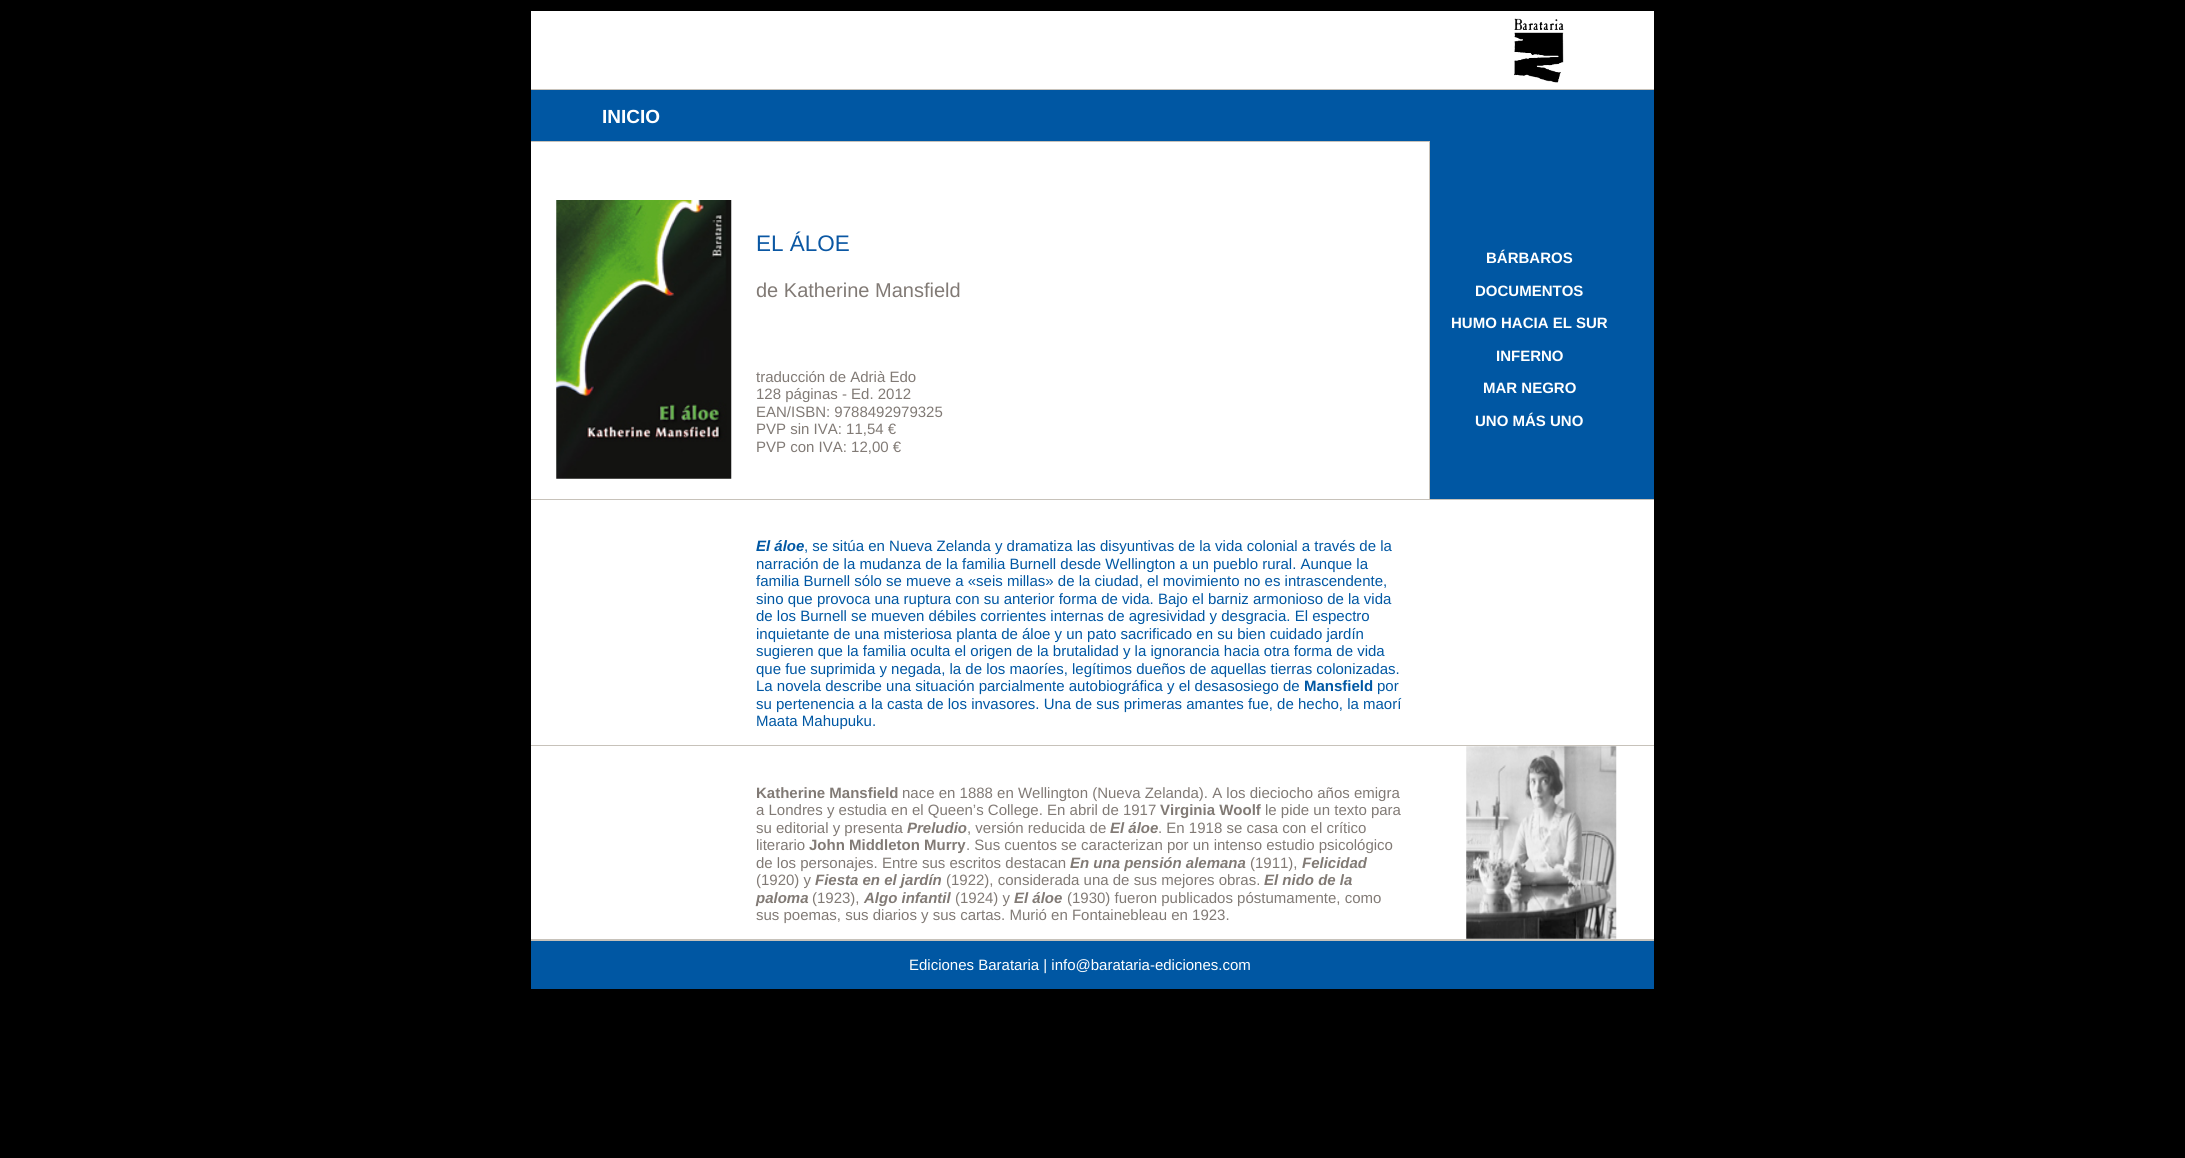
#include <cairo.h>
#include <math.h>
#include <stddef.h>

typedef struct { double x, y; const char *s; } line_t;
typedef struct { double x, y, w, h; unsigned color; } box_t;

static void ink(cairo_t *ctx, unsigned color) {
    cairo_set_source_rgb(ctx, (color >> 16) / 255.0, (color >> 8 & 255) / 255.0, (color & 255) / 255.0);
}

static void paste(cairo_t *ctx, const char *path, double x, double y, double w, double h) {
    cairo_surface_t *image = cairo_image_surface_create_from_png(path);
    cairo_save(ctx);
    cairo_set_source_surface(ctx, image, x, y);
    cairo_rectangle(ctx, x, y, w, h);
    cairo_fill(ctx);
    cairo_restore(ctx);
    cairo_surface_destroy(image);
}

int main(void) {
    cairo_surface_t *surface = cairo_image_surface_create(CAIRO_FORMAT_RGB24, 2185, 1158);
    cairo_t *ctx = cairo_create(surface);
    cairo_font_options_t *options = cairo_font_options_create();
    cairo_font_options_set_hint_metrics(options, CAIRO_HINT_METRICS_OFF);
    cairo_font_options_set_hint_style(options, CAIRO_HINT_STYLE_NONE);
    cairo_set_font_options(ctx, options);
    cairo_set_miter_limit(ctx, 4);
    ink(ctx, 0x000000);
    cairo_paint(ctx);
    ink(ctx, 0xFFFFFF);
    cairo_rectangle(ctx, 531, 11, 1123, 928);
    cairo_fill(ctx);
    paste(ctx, "media/1.png", 1514, 18, 50, 65);
    ink(ctx, 0x0057A3);
    cairo_rectangle(ctx, 531, 90, 1123, 51);
    cairo_fill(ctx);
    ink(ctx, 0xC7C2BA);
    cairo_rectangle(ctx, 531, 89, 1123, 1);
    cairo_fill(ctx);
    cairo_select_font_face(ctx, "Liberation Sans", CAIRO_FONT_SLANT_NORMAL, CAIRO_FONT_WEIGHT_BOLD);
    cairo_set_font_size(ctx, 19);
    ink(ctx, 0xFFFFFF);
    cairo_move_to(ctx, 602, 123);
    cairo_show_text(ctx, "INICIO");
    {
        static const box_t items[] = {
            {531, 141, 898, 1, 0xC7C2BA},
            {1430, 141, 224, 358, 0x0057A3},
            {1429, 141, 1, 358, 0xC7C2BA},
        };
        for (size_t i = 0; i < sizeof items / sizeof *items; i++) {
            ink(ctx, items[i].color);
            cairo_rectangle(ctx, items[i].x, items[i].y, items[i].w, items[i].h);
            cairo_fill(ctx);
        }
    }
    paste(ctx, "media/2.png", 556, 200, 176, 279);
    cairo_select_font_face(ctx, "Liberation Sans", CAIRO_FONT_SLANT_NORMAL, CAIRO_FONT_WEIGHT_NORMAL);
    cairo_set_font_size(ctx, 22.5);
    ink(ctx, 0x0A57A3);
    cairo_move_to(ctx, 756, 251);
    cairo_show_text(ctx, "EL ÁLOE");
    cairo_set_font_size(ctx, 20);
    ink(ctx, 0x817A75);
    cairo_move_to(ctx, 756, 297);
    cairo_show_text(ctx, "de Katherine Mansfield");
    cairo_set_font_size(ctx, 15);
    {
        static const line_t items[] = {
            {756, 382, "traducción de Adrià Edo"},
            {756, 399, "128 páginas - Ed. 2012"},
            {756, 417, "EAN/ISBN: 9788492979325"},
            {756, 434, "PVP sin IVA: 11,54 €"},
            {756, 452, "PVP con IVA: 12,00 €"},
        };
        for (size_t i = 0; i < sizeof items / sizeof *items; i++) {
            cairo_move_to(ctx, items[i].x, items[i].y);
            cairo_show_text(ctx, items[i].s);
        }
    }
    cairo_select_font_face(ctx, "Liberation Sans", CAIRO_FONT_SLANT_NORMAL, CAIRO_FONT_WEIGHT_BOLD);
    ink(ctx, 0xFFFFFF);
    {
        static const line_t items[] = {
            {1486, 263, "BÁRBAROS"},
            {1475, 296, "DOCUMENTOS"},
            {1451, 328, "HUMO HACIA EL SUR"},
            {1496, 361, "INFERNO"},
            {1483, 393, "MAR NEGRO"},
            {1475, 426, "UNO MÁS UNO"},
        };
        for (size_t i = 0; i < sizeof items / sizeof *items; i++) {
            cairo_move_to(ctx, items[i].x, items[i].y);
            cairo_show_text(ctx, items[i].s);
        }
    }
    ink(ctx, 0xC7C2BA);
    cairo_rectangle(ctx, 531, 499, 1123, 1);
    cairo_fill(ctx);
    cairo_select_font_face(ctx, "Liberation Sans", CAIRO_FONT_SLANT_ITALIC, CAIRO_FONT_WEIGHT_BOLD);
    ink(ctx, 0x0057A3);
    cairo_move_to(ctx, 756, 551);
    cairo_show_text(ctx, "El áloe");
    cairo_select_font_face(ctx, "Liberation Sans", CAIRO_FONT_SLANT_NORMAL, CAIRO_FONT_WEIGHT_NORMAL);
    {
        static const line_t items[] = {
            {804, 551, ", se sitúa en Nueva Zelanda y dramatiza las disyuntivas de la vida colonial a través de la"},
            {756, 569, "narración de la mudanza de la familia Burnell desde Wellington a un pueblo rural. Aunque la"},
            {756, 586, "familia Burnell sólo se mueve a «seis millas» de la ciudad, el movimiento no es intrascendente,"},
            {756, 604, "sino que provoca una ruptura con su anterior forma de vida. Bajo el barniz armonioso de la vida"},
            {756, 621, "de los Burnell se mueven débiles corrientes internas de agresividad y desgracia. El espectro"},
            {756, 639, "inquietante de una misteriosa planta de áloe y un pato sacrificado en su bien cuidado jardín"},
            {756, 656, "sugieren que la familia oculta el origen de la brutalidad y la ignorancia hacia otra forma de vida"},
            {756, 674, "que fue suprimida y negada, la de los maoríes, legítimos dueños de aquellas tierras colonizadas."},
            {756, 691, "La novela describe una situación parcialmente autobiográfica y el desasosiego de"},
        };
        for (size_t i = 0; i < sizeof items / sizeof *items; i++) {
            cairo_move_to(ctx, items[i].x, items[i].y);
            cairo_show_text(ctx, items[i].s);
        }
    }
    cairo_select_font_face(ctx, "Liberation Sans", CAIRO_FONT_SLANT_NORMAL, CAIRO_FONT_WEIGHT_BOLD);
    cairo_move_to(ctx, 1304, 691);
    cairo_show_text(ctx, "Mansfield");
    cairo_select_font_face(ctx, "Liberation Sans", CAIRO_FONT_SLANT_NORMAL, CAIRO_FONT_WEIGHT_NORMAL);
    {
        static const line_t items[] = {
            {1377, 691, "por"},
            {756, 709, "su pertenencia a la casta de los invasores. Una de sus primeras amantes fue, de hecho, la maorí"},
            {756, 726, "Maata Mahupuku."},
        };
        for (size_t i = 0; i < sizeof items / sizeof *items; i++) {
            cairo_move_to(ctx, items[i].x, items[i].y);
            cairo_show_text(ctx, items[i].s);
        }
    }
    ink(ctx, 0xC7C2BA);
    cairo_rectangle(ctx, 531, 745, 1123, 1);
    cairo_fill(ctx);
    cairo_select_font_face(ctx, "Liberation Sans", CAIRO_FONT_SLANT_NORMAL, CAIRO_FONT_WEIGHT_BOLD);
    ink(ctx, 0x817A75);
    cairo_move_to(ctx, 756, 798);
    cairo_show_text(ctx, "Katherine Mansfield");
    cairo_select_font_face(ctx, "Liberation Sans", CAIRO_FONT_SLANT_NORMAL, CAIRO_FONT_WEIGHT_NORMAL);
    cairo_move_to(ctx, 902, 798);
    cairo_show_text(ctx, "nace en 1888 en Wellington (Nueva Zelanda). A los dieciocho años emigra");
    cairo_move_to(ctx, 756, 815);
    cairo_show_text(ctx, "a Londres y estudia en el Queen’s College. En abril de 1917");
    cairo_select_font_face(ctx, "Liberation Sans", CAIRO_FONT_SLANT_NORMAL, CAIRO_FONT_WEIGHT_BOLD);
    cairo_move_to(ctx, 1160, 815);
    cairo_show_text(ctx, "Virginia Woolf");
    cairo_select_font_face(ctx, "Liberation Sans", CAIRO_FONT_SLANT_NORMAL, CAIRO_FONT_WEIGHT_NORMAL);
    cairo_move_to(ctx, 1265, 815);
    cairo_show_text(ctx, "le pide un texto para");
    cairo_move_to(ctx, 756, 833);
    cairo_show_text(ctx, "su editorial y presenta");
    cairo_select_font_face(ctx, "Liberation Sans", CAIRO_FONT_SLANT_ITALIC, CAIRO_FONT_WEIGHT_BOLD);
    cairo_move_to(ctx, 907, 833);
    cairo_show_text(ctx, "Preludio");
    cairo_select_font_face(ctx, "Liberation Sans", CAIRO_FONT_SLANT_NORMAL, CAIRO_FONT_WEIGHT_NORMAL);
    cairo_move_to(ctx, 967, 833);
    cairo_show_text(ctx, ", versión reducida de");
    cairo_select_font_face(ctx, "Liberation Sans", CAIRO_FONT_SLANT_ITALIC, CAIRO_FONT_WEIGHT_BOLD);
    cairo_move_to(ctx, 1110, 833);
    cairo_show_text(ctx, "El áloe");
    cairo_select_font_face(ctx, "Liberation Sans", CAIRO_FONT_SLANT_NORMAL, CAIRO_FONT_WEIGHT_NORMAL);
    cairo_move_to(ctx, 1158, 833);
    cairo_show_text(ctx, ". En 1918 se casa con el crítico");
    cairo_move_to(ctx, 756, 850);
    cairo_show_text(ctx, "literario");
    cairo_select_font_face(ctx, "Liberation Sans", CAIRO_FONT_SLANT_NORMAL, CAIRO_FONT_WEIGHT_BOLD);
    cairo_move_to(ctx, 809, 850);
    cairo_show_text(ctx, "John Middleton Murry");
    cairo_select_font_face(ctx, "Liberation Sans", CAIRO_FONT_SLANT_NORMAL, CAIRO_FONT_WEIGHT_NORMAL);
    cairo_move_to(ctx, 966, 850);
    cairo_show_text(ctx, ". Sus cuentos se caracterizan por un intenso estudio psicológico");
    cairo_move_to(ctx, 756, 868);
    cairo_show_text(ctx, "de los personajes. Entre sus escritos destacan");
    cairo_select_font_face(ctx, "Liberation Sans", CAIRO_FONT_SLANT_ITALIC, CAIRO_FONT_WEIGHT_BOLD);
    cairo_move_to(ctx, 1070, 868);
    cairo_show_text(ctx, "En una pensión alemana");
    cairo_select_font_face(ctx, "Liberation Sans", CAIRO_FONT_SLANT_NORMAL, CAIRO_FONT_WEIGHT_NORMAL);
    cairo_move_to(ctx, 1250, 868);
    cairo_show_text(ctx, "(1911),");
    cairo_select_font_face(ctx, "Liberation Sans", CAIRO_FONT_SLANT_ITALIC, CAIRO_FONT_WEIGHT_BOLD);
    cairo_move_to(ctx, 1302, 868);
    cairo_show_text(ctx, "Felicidad");
    cairo_select_font_face(ctx, "Liberation Sans", CAIRO_FONT_SLANT_NORMAL, CAIRO_FONT_WEIGHT_NORMAL);
    cairo_move_to(ctx, 756, 885);
    cairo_show_text(ctx, "(1920) y");
    cairo_select_font_face(ctx, "Liberation Sans", CAIRO_FONT_SLANT_ITALIC, CAIRO_FONT_WEIGHT_BOLD);
    cairo_move_to(ctx, 815, 885);
    cairo_show_text(ctx, "Fiesta en el jardín");
    cairo_select_font_face(ctx, "Liberation Sans", CAIRO_FONT_SLANT_NORMAL, CAIRO_FONT_WEIGHT_NORMAL);
    cairo_move_to(ctx, 946, 885);
    cairo_show_text(ctx, "(1922), considerada una de sus mejores obras.");
    cairo_select_font_face(ctx, "Liberation Sans", CAIRO_FONT_SLANT_ITALIC, CAIRO_FONT_WEIGHT_BOLD);
    cairo_move_to(ctx, 1264, 885);
    cairo_show_text(ctx, "El nido de la");
    cairo_move_to(ctx, 756, 903);
    cairo_show_text(ctx, "paloma");
    cairo_select_font_face(ctx, "Liberation Sans", CAIRO_FONT_SLANT_NORMAL, CAIRO_FONT_WEIGHT_NORMAL);
    cairo_move_to(ctx, 812, 903);
    cairo_show_text(ctx, "(1923),");
    cairo_select_font_face(ctx, "Liberation Sans", CAIRO_FONT_SLANT_ITALIC, CAIRO_FONT_WEIGHT_BOLD);
    cairo_move_to(ctx, 864, 903);
    cairo_show_text(ctx, "Algo infantil");
    cairo_select_font_face(ctx, "Liberation Sans", CAIRO_FONT_SLANT_NORMAL, CAIRO_FONT_WEIGHT_NORMAL);
    cairo_move_to(ctx, 955, 903);
    cairo_show_text(ctx, "(1924) y");
    cairo_select_font_face(ctx, "Liberation Sans", CAIRO_FONT_SLANT_ITALIC, CAIRO_FONT_WEIGHT_BOLD);
    cairo_move_to(ctx, 1014, 903);
    cairo_show_text(ctx, "El áloe");
    cairo_select_font_face(ctx, "Liberation Sans", CAIRO_FONT_SLANT_NORMAL, CAIRO_FONT_WEIGHT_NORMAL);
    cairo_move_to(ctx, 1067, 903);
    cairo_show_text(ctx, "(1930) fueron publicados póstumamente, como");
    cairo_move_to(ctx, 756, 920);
    cairo_show_text(ctx, "sus poemas, sus diarios y sus cartas. Murió en Fontainebleau en 1923.");
    paste(ctx, "media/3.png", 1466, 746, 151, 193);
    {
        static const box_t items[] = {
            {531, 941, 1123, 48, 0x0057A3},
            {531, 939, 1123, 1, 0xC7C2BA},
            {531, 940, 1123, 1, 0xC7C2BA},
        };
        for (size_t i = 0; i < sizeof items / sizeof *items; i++) {
            ink(ctx, items[i].color);
            cairo_rectangle(ctx, items[i].x, items[i].y, items[i].w, items[i].h);
            cairo_fill(ctx);
        }
    }
    ink(ctx, 0xFFFFFF);
    cairo_move_to(ctx, 909, 970);
    cairo_show_text(ctx, "Ediciones Barataria | info@barataria-ediciones.com");
    cairo_surface_write_to_png(surface, "image.png");
    cairo_font_options_destroy(options);
    cairo_destroy(ctx);
    cairo_surface_destroy(surface);
    return 0;
}
